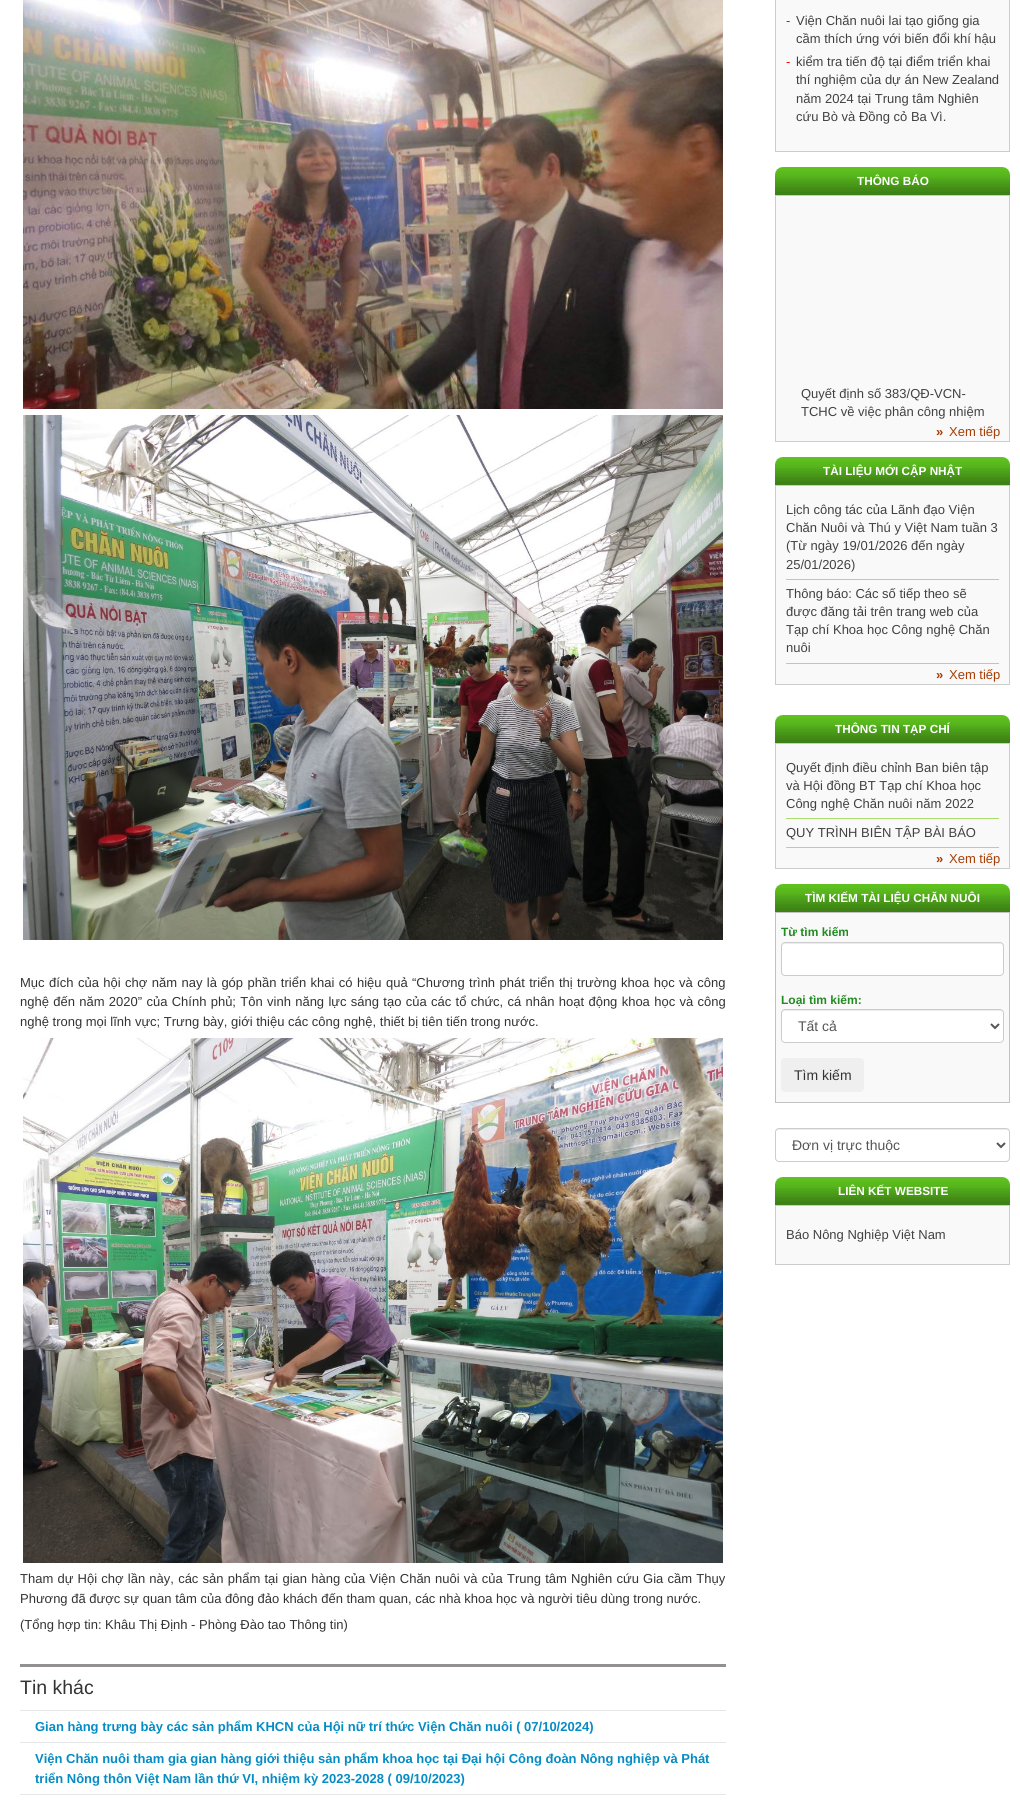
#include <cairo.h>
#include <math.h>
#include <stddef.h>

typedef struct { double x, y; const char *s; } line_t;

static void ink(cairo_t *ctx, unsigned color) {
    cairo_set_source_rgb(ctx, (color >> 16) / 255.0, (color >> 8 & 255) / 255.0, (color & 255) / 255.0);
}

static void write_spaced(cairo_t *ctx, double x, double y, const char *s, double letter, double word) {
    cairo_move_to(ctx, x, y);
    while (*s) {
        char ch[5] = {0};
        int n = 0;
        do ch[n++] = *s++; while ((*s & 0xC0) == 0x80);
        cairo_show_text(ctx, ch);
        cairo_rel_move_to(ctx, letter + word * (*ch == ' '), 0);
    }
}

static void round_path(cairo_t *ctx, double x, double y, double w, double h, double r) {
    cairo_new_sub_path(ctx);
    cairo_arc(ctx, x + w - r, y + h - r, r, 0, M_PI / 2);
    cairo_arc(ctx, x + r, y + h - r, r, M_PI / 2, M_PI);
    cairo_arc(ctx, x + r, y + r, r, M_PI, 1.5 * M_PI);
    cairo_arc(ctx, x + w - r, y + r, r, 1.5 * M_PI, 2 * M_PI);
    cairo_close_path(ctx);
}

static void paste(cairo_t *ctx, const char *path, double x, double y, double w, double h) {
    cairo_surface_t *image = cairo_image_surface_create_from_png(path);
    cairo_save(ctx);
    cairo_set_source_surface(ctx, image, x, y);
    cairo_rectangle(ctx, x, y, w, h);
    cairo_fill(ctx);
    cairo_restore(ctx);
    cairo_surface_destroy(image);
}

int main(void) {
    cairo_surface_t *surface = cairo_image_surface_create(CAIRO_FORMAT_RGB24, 1020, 1806);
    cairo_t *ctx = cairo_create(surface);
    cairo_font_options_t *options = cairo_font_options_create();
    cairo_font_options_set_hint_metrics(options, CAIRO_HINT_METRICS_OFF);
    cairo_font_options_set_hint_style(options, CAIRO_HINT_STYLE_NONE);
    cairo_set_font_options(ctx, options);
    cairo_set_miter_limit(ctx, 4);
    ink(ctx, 0xFFFFFF);
    cairo_paint(ctx);
    ink(ctx, 0xF9F9FA);
    cairo_rectangle(ctx, 775.5, -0.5, 234, 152);
    cairo_fill_preserve(ctx);
    ink(ctx, 0xCCCCCC);
    cairo_set_line_width(ctx, 1);
    cairo_stroke(ctx);
    cairo_select_font_face(ctx, "Liberation Sans", CAIRO_FONT_SLANT_NORMAL, CAIRO_FONT_WEIGHT_NORMAL);
    cairo_set_font_size(ctx, 13);
    ink(ctx, 0xFF0000);
    cairo_move_to(ctx, 786, 25);
    cairo_show_text(ctx, "-");
    ink(ctx, 0x414141);
    cairo_move_to(ctx, 796, 25);
    cairo_show_text(ctx, "Viện Chăn nuôi lai tạo giống gia");
    cairo_move_to(ctx, 796, 43);
    cairo_show_text(ctx, "cầm thích ứng với biến đổi khí hậu");
    ink(ctx, 0xFF0000);
    cairo_move_to(ctx, 786, 66);
    cairo_show_text(ctx, "-");
    ink(ctx, 0x414141);
    {
        static const line_t items[] = {
            {796, 66, "kiểm tra tiến độ tại điểm triển khai"},
            {796, 84, "thí nghiệm của dự án New Zealand"},
            {796, 103, "năm 2024 tại Trung tâm Nghiên"},
            {796, 121, "cứu Bò và Đồng cỏ Ba Vì."},
        };
        for (size_t i = 0; i < sizeof items / sizeof *items; i++) {
            cairo_move_to(ctx, items[i].x, items[i].y);
            cairo_show_text(ctx, items[i].s);
        }
    }
    paste(ctx, "media/1.png", 775, 167, 235, 28);
    cairo_select_font_face(ctx, "Liberation Sans", CAIRO_FONT_SLANT_NORMAL, CAIRO_FONT_WEIGHT_BOLD);
    cairo_set_font_size(ctx, 11.75);
    ink(ctx, 0xFFFFFF);
    cairo_move_to(ctx, 857, 185);
    cairo_show_text(ctx, "THÔNG BÁO");
    ink(ctx, 0xF9F9FA);
    cairo_rectangle(ctx, 775.5, 195.5, 234, 246);
    cairo_fill_preserve(ctx);
    ink(ctx, 0xCCCCCC);
    cairo_stroke(ctx);
    cairo_select_font_face(ctx, "Liberation Sans", CAIRO_FONT_SLANT_NORMAL, CAIRO_FONT_WEIGHT_NORMAL);
    cairo_set_font_size(ctx, 13);
    ink(ctx, 0x414141);
    cairo_move_to(ctx, 801, 398);
    cairo_show_text(ctx, "Quyết định số 383/QĐ-VCN-");
    cairo_move_to(ctx, 801, 416);
    cairo_show_text(ctx, "TCHC về việc phân công nhiệm");
    cairo_select_font_face(ctx, "Liberation Sans", CAIRO_FONT_SLANT_NORMAL, CAIRO_FONT_WEIGHT_BOLD);
    ink(ctx, 0xA63D04);
    cairo_move_to(ctx, 936, 436);
    cairo_show_text(ctx, "»");
    cairo_select_font_face(ctx, "Liberation Sans", CAIRO_FONT_SLANT_NORMAL, CAIRO_FONT_WEIGHT_NORMAL);
    cairo_move_to(ctx, 949, 436);
    cairo_show_text(ctx, "Xem tiếp");
    paste(ctx, "media/1.png", 775, 457, 235, 28);
    cairo_select_font_face(ctx, "Liberation Sans", CAIRO_FONT_SLANT_NORMAL, CAIRO_FONT_WEIGHT_BOLD);
    cairo_set_font_size(ctx, 11.75);
    ink(ctx, 0xFFFFFF);
    cairo_move_to(ctx, 823, 475);
    cairo_show_text(ctx, "TÀI LIỆU MỚI CẬP NHẬT");
    ink(ctx, 0xF9F9FA);
    cairo_rectangle(ctx, 775.5, 485.5, 234, 199);
    cairo_fill_preserve(ctx);
    ink(ctx, 0xCCCCCC);
    cairo_stroke(ctx);
    ink(ctx, 0xAADE6F);
    cairo_rectangle(ctx, 786, 579, 213, 1);
    cairo_fill(ctx);
    cairo_select_font_face(ctx, "Liberation Sans", CAIRO_FONT_SLANT_NORMAL, CAIRO_FONT_WEIGHT_NORMAL);
    cairo_set_font_size(ctx, 13);
    ink(ctx, 0x414141);
    {
        static const line_t items[] = {
            {786, 514, "Lịch công tác của Lãnh đạo Viện"},
            {786, 532, "Chăn Nuôi và Thú y Việt Nam tuần 3"},
            {786, 550, "(Từ ngày 19/01/2026 đến ngày"},
            {786, 569, "25/01/2026)"},
        };
        for (size_t i = 0; i < sizeof items / sizeof *items; i++) {
            cairo_move_to(ctx, items[i].x, items[i].y);
            cairo_show_text(ctx, items[i].s);
        }
    }
    ink(ctx, 0xAADE6F);
    cairo_rectangle(ctx, 786, 663, 213, 1);
    cairo_fill(ctx);
    ink(ctx, 0x414141);
    {
        static const line_t items[] = {
            {786, 598, "Thông báo: Các số tiếp theo sẽ"},
            {786, 616, "được đăng tải trên trang web của"},
            {786, 634, "Tạp chí Khoa học Công nghệ Chăn"},
            {786, 652, "nuôi"},
        };
        for (size_t i = 0; i < sizeof items / sizeof *items; i++) {
            cairo_move_to(ctx, items[i].x, items[i].y);
            cairo_show_text(ctx, items[i].s);
        }
    }
    cairo_select_font_face(ctx, "Liberation Sans", CAIRO_FONT_SLANT_NORMAL, CAIRO_FONT_WEIGHT_BOLD);
    ink(ctx, 0xA63D04);
    cairo_move_to(ctx, 936, 679);
    cairo_show_text(ctx, "»");
    cairo_select_font_face(ctx, "Liberation Sans", CAIRO_FONT_SLANT_NORMAL, CAIRO_FONT_WEIGHT_NORMAL);
    cairo_move_to(ctx, 949, 679);
    cairo_show_text(ctx, "Xem tiếp");
    paste(ctx, "media/1.png", 775, 715, 235, 28);
    cairo_select_font_face(ctx, "Liberation Sans", CAIRO_FONT_SLANT_NORMAL, CAIRO_FONT_WEIGHT_BOLD);
    cairo_set_font_size(ctx, 11.75);
    ink(ctx, 0xFFFFFF);
    cairo_move_to(ctx, 835, 733);
    cairo_show_text(ctx, "THÔNG TIN TẠP CHÍ");
    ink(ctx, 0xF9F9FA);
    cairo_rectangle(ctx, 775.5, 743.5, 234, 125);
    cairo_fill_preserve(ctx);
    ink(ctx, 0xCCCCCC);
    cairo_stroke(ctx);
    ink(ctx, 0xAADE6F);
    cairo_rectangle(ctx, 786, 818, 213, 1);
    cairo_fill(ctx);
    cairo_select_font_face(ctx, "Liberation Sans", CAIRO_FONT_SLANT_NORMAL, CAIRO_FONT_WEIGHT_NORMAL);
    cairo_set_font_size(ctx, 13);
    ink(ctx, 0x414141);
    {
        static const line_t items[] = {
            {786, 772, "Quyết định điều chỉnh Ban biên tập"},
            {786, 790, "và Hội đồng BT Tạp chí Khoa học"},
            {786, 808, "Công nghệ Chăn nuôi năm 2022"},
        };
        for (size_t i = 0; i < sizeof items / sizeof *items; i++) {
            cairo_move_to(ctx, items[i].x, items[i].y);
            cairo_show_text(ctx, items[i].s);
        }
    }
    ink(ctx, 0xAADE6F);
    cairo_rectangle(ctx, 786, 847, 213, 1);
    cairo_fill(ctx);
    ink(ctx, 0x414141);
    cairo_move_to(ctx, 786, 837);
    cairo_show_text(ctx, "QUY TRÌNH BIÊN TẬP BÀI BÁO");
    cairo_select_font_face(ctx, "Liberation Sans", CAIRO_FONT_SLANT_NORMAL, CAIRO_FONT_WEIGHT_BOLD);
    ink(ctx, 0xA63D04);
    cairo_move_to(ctx, 936, 863);
    cairo_show_text(ctx, "»");
    cairo_select_font_face(ctx, "Liberation Sans", CAIRO_FONT_SLANT_NORMAL, CAIRO_FONT_WEIGHT_NORMAL);
    cairo_move_to(ctx, 949, 863);
    cairo_show_text(ctx, "Xem tiếp");
    paste(ctx, "media/1.png", 775, 884, 235, 28);
    cairo_select_font_face(ctx, "Liberation Sans", CAIRO_FONT_SLANT_NORMAL, CAIRO_FONT_WEIGHT_BOLD);
    cairo_set_font_size(ctx, 11.75);
    ink(ctx, 0xFFFFFF);
    cairo_move_to(ctx, 805, 902);
    cairo_show_text(ctx, "TÌM KIẾM TÀI LIỆU CHĂN NUÔI");
    ink(ctx, 0xF9F9F9);
    cairo_rectangle(ctx, 775.5, 912.5, 234, 190);
    cairo_fill_preserve(ctx);
    ink(ctx, 0xC1C1C1);
    cairo_stroke(ctx);
    cairo_set_font_size(ctx, 12);
    ink(ctx, 0x228B22);
    cairo_move_to(ctx, 781, 936);
    cairo_show_text(ctx, "Từ tìm kiếm");
    ink(ctx, 0xFFFFFF);
    round_path(ctx, 781, 942, 223, 34, 4);
    cairo_fill(ctx);
    ink(ctx, 0xECECEC);
    cairo_new_path(ctx);
    cairo_move_to(ctx, 785, 944);
    cairo_line_to(ctx, 1000, 944);
    cairo_curve_to(ctx, 1002, 944, 1003, 945, 1003, 947);
    cairo_line_to(ctx, 1003, 946);
    cairo_curve_to(ctx, 1003, 944, 1002, 943, 1000, 943);
    cairo_line_to(ctx, 785, 943);
    cairo_curve_to(ctx, 783, 943, 782, 944, 782, 946);
    cairo_line_to(ctx, 782, 947);
    cairo_curve_to(ctx, 782, 945, 783, 944, 785, 944);
    cairo_close_path(ctx);
    cairo_fill(ctx);
    round_path(ctx, 781.5, 942.5, 222, 33, 3.5);
    ink(ctx, 0xCCCCCC);
    cairo_stroke(ctx);
    ink(ctx, 0x228B22);
    cairo_move_to(ctx, 781, 1004);
    cairo_show_text(ctx, "Loại tìm kiếm:");
    ink(ctx, 0xFFFFFF);
    round_path(ctx, 781, 1009, 223, 34, 4);
    cairo_fill(ctx);
    ink(ctx, 0xECECEC);
    cairo_new_path(ctx);
    cairo_move_to(ctx, 785, 1011);
    cairo_line_to(ctx, 1000, 1011);
    cairo_curve_to(ctx, 1002, 1011, 1003, 1012, 1003, 1014);
    cairo_line_to(ctx, 1003, 1013);
    cairo_curve_to(ctx, 1003, 1011, 1002, 1010, 1000, 1010);
    cairo_line_to(ctx, 785, 1010);
    cairo_curve_to(ctx, 783, 1010, 782, 1011, 782, 1013);
    cairo_line_to(ctx, 782, 1014);
    cairo_curve_to(ctx, 782, 1012, 783, 1011, 785, 1011);
    cairo_close_path(ctx);
    cairo_fill(ctx);
    round_path(ctx, 781.5, 1009.5, 222, 33, 3.5);
    ink(ctx, 0xCCCCCC);
    cairo_stroke(ctx);
    cairo_new_path(ctx);
    cairo_move_to(ctx, 991, 1024);
    cairo_line_to(ctx, 995, 1028);
    cairo_line_to(ctx, 999, 1024);
    ink(ctx, 0x555555);
    cairo_set_line_width(ctx, 2);
    cairo_stroke(ctx);
    cairo_select_font_face(ctx, "Liberation Sans", CAIRO_FONT_SLANT_NORMAL, CAIRO_FONT_WEIGHT_NORMAL);
    cairo_set_font_size(ctx, 14);
    cairo_move_to(ctx, 798, 1031);
    cairo_show_text(ctx, "Tất cả");
    ink(ctx, 0xEFEFEF);
    round_path(ctx, 781, 1058, 83, 34, 4);
    cairo_fill(ctx);
    ink(ctx, 0x333333);
    cairo_move_to(ctx, 794, 1080);
    cairo_show_text(ctx, "Tìm kiếm");
    ink(ctx, 0xECECEC);
    cairo_new_path(ctx);
    cairo_move_to(ctx, 779, 1130);
    cairo_line_to(ctx, 1006, 1130);
    cairo_curve_to(ctx, 1008, 1130, 1009, 1131, 1009, 1133);
    cairo_curve_to(ctx, 1009, 1131, 1008, 1129, 1006, 1129);
    cairo_line_to(ctx, 779, 1129);
    cairo_curve_to(ctx, 777, 1129, 776, 1131, 776, 1133);
    cairo_curve_to(ctx, 776, 1131, 777, 1130, 779, 1130);
    cairo_close_path(ctx);
    cairo_fill(ctx);
    round_path(ctx, 775.5, 1128.5, 234, 33, 3.5);
    ink(ctx, 0xCCCCCC);
    cairo_set_line_width(ctx, 1);
    cairo_stroke(ctx);
    cairo_new_path(ctx);
    cairo_move_to(ctx, 997, 1143);
    cairo_line_to(ctx, 1001, 1147);
    cairo_line_to(ctx, 1005, 1143);
    ink(ctx, 0x555555);
    cairo_set_line_width(ctx, 2);
    cairo_stroke(ctx);
    cairo_move_to(ctx, 792, 1150);
    cairo_show_text(ctx, "Đơn vị trực thuộc");
    paste(ctx, "media/1.png", 775, 1177, 235, 28);
    cairo_select_font_face(ctx, "Liberation Sans", CAIRO_FONT_SLANT_NORMAL, CAIRO_FONT_WEIGHT_BOLD);
    cairo_set_font_size(ctx, 11.75);
    ink(ctx, 0xFFFFFF);
    cairo_move_to(ctx, 838, 1195);
    cairo_show_text(ctx, "LIÊN KẾT WEBSITE");
    ink(ctx, 0xF9F9FA);
    cairo_rectangle(ctx, 775.5, 1205.5, 234, 59);
    cairo_fill_preserve(ctx);
    ink(ctx, 0xCCCCCC);
    cairo_set_line_width(ctx, 1);
    cairo_stroke(ctx);
    cairo_select_font_face(ctx, "Liberation Sans", CAIRO_FONT_SLANT_NORMAL, CAIRO_FONT_WEIGHT_NORMAL);
    cairo_set_font_size(ctx, 13);
    ink(ctx, 0x414141);
    cairo_move_to(ctx, 786, 1239);
    cairo_show_text(ctx, "Báo Nông Nghiệp Việt Nam");
    paste(ctx, "media/2.png", 23, 0, 700, 409);
    paste(ctx, "media/3.png", 23, 415, 700, 525);
    ink(ctx, 0x333333);
    write_spaced(ctx, 20, 987, "Mục đích của hội chợ năm nay là góp phần triển khai có hiệu quả “Chương trình phát triển thị trường khoa học và công", 0, 0.8);
    write_spaced(ctx, 20, 1006, "nghệ đến năm 2020” của Chính phủ; Tôn vinh năng lực sáng tạo của các tổ chức, cá nhân hoạt động khoa học và công", 0, 0.7);
    cairo_move_to(ctx, 20, 1026);
    cairo_show_text(ctx, "nghệ trong mọi lĩnh vực; Trưng bày, giới thiệu các công nghệ, thiết bị tiên tiến trong nước.");
    paste(ctx, "media/4.png", 23, 1038, 700, 525);
    write_spaced(ctx, 20, 1583, "Tham dự Hội chợ lần này, các sản phẩm tại gian hàng của Viện Chăn nuôi và của Trung tâm Nghiên cứu Gia cầm Thụy", 0, 0.6);
    cairo_move_to(ctx, 20, 1603);
    cairo_show_text(ctx, "Phương đã được sự quan tâm của đông đảo khách đến tham quan, các nhà khoa học và người tiêu dùng trong nước.");
    cairo_move_to(ctx, 20, 1629);
    cairo_show_text(ctx, "(Tổng hợp tin: Khâu Thị Định - Phòng Đào tao Thông tin)");
    ink(ctx, 0x929090);
    cairo_rectangle(ctx, 20, 1664, 706, 3);
    cairo_fill(ctx);
    cairo_set_font_size(ctx, 19.5);
    ink(ctx, 0x333333);
    cairo_move_to(ctx, 20, 1694);
    cairo_show_text(ctx, "Tin khác");
    ink(ctx, 0xE7E7E7);
    cairo_rectangle(ctx, 20, 1710, 706, 1);
    cairo_fill(ctx);
    cairo_select_font_face(ctx, "Liberation Sans", CAIRO_FONT_SLANT_NORMAL, CAIRO_FONT_WEIGHT_BOLD);
    cairo_set_font_size(ctx, 13);
    ink(ctx, 0x068CC4);
    cairo_move_to(ctx, 35, 1731);
    cairo_show_text(ctx, "Gian hàng trưng bày các sản phẩm KHCN của Hội nữ trí thức Viện Chăn nuôi ( 07/10/2024)");
    ink(ctx, 0xE7E7E7);
    cairo_rectangle(ctx, 20, 1742, 706, 1);
    cairo_fill(ctx);
    ink(ctx, 0x068CC4);
    cairo_move_to(ctx, 35, 1763);
    cairo_show_text(ctx, "Viện Chăn nuôi tham gia gian hàng giới thiệu sản phẩm khoa học tại Đại hội Công đoàn Nông nghiệp và Phát");
    cairo_move_to(ctx, 35, 1783);
    cairo_show_text(ctx, "triển Nông thôn Việt Nam lần thứ VI, nhiệm kỳ 2023-2028 ( 09/10/2023)");
    ink(ctx, 0xE7E7E7);
    cairo_rectangle(ctx, 20, 1794, 706, 1);
    cairo_fill(ctx);
    cairo_surface_write_to_png(surface, "image.png");
    cairo_font_options_destroy(options);
    cairo_destroy(ctx);
    cairo_surface_destroy(surface);
    return 0;
}
